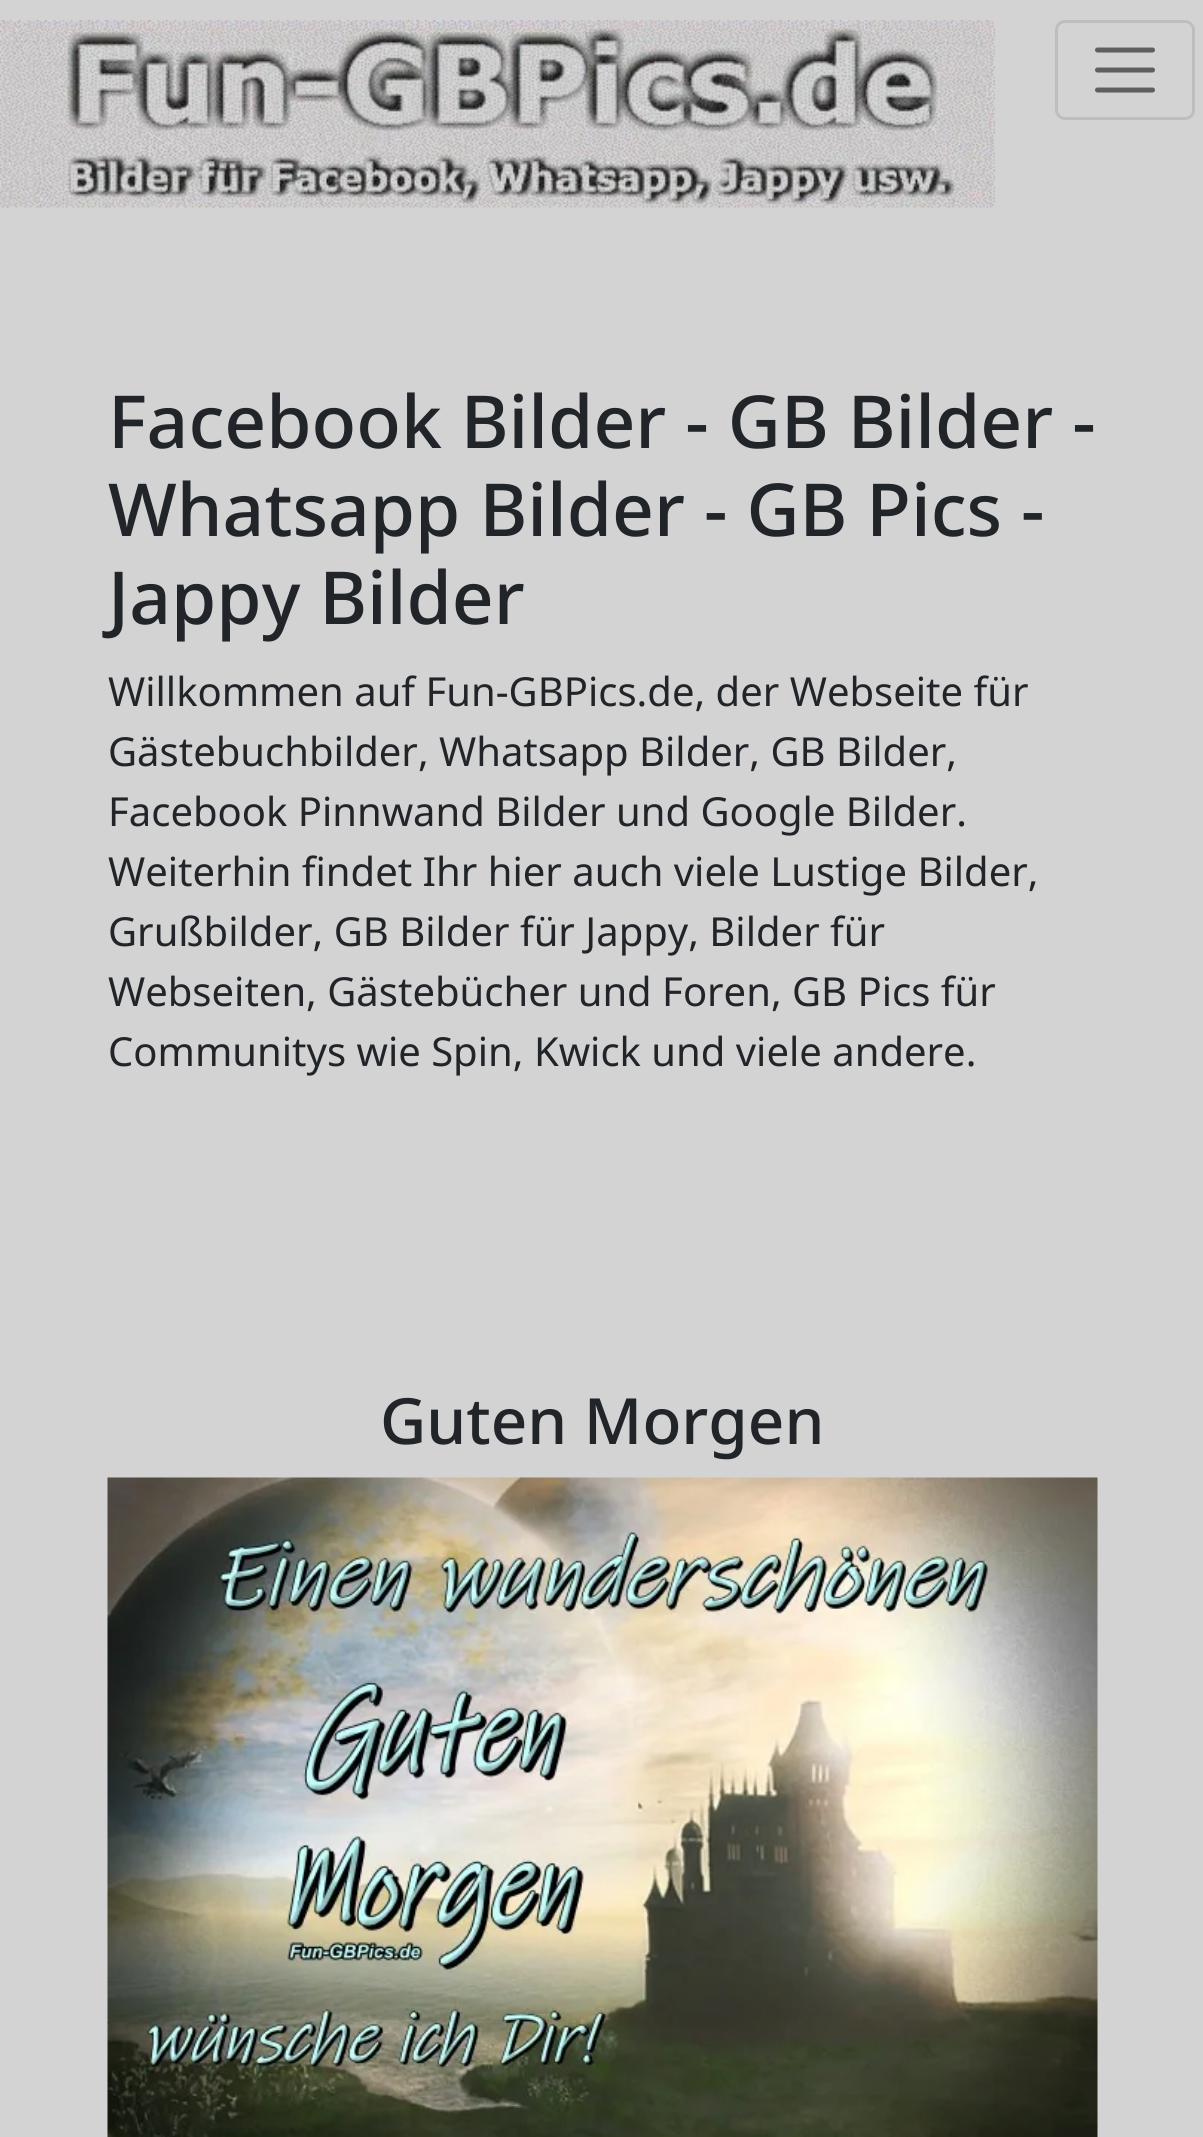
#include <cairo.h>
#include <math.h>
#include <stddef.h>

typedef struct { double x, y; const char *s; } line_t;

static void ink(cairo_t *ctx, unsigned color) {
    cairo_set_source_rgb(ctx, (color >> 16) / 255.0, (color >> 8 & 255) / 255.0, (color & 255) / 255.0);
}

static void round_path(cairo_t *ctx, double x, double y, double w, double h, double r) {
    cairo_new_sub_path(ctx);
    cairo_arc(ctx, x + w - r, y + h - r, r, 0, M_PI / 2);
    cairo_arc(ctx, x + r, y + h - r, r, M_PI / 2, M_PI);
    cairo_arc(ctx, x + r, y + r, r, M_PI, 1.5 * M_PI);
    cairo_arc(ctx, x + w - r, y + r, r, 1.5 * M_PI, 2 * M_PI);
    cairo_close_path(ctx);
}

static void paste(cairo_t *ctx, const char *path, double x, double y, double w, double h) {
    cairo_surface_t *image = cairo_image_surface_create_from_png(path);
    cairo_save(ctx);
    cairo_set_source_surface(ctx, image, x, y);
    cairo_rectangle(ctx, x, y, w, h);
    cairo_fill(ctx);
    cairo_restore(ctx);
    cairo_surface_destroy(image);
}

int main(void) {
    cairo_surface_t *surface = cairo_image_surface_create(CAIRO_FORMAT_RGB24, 1203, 2137);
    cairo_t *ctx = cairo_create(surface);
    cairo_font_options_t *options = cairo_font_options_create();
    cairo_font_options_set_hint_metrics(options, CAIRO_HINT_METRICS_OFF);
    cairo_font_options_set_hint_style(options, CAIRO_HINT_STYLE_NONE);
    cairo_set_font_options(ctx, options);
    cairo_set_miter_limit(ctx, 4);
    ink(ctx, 0xD3D3D3);
    cairo_paint(ctx);
    paste(ctx, "media/1.png", 0, 20, 995, 188);
    round_path(ctx, 1056.5, 21.5, 137, 97, 8.5);
    ink(ctx, 0xBEBEBE);
    cairo_set_line_width(ctx, 3);
    cairo_stroke(ctx);
    cairo_new_path(ctx);
    cairo_move_to(ctx, 1097.5, 50);
    cairo_line_to(ctx, 1152.5, 50);
    cairo_move_to(ctx, 1097.5, 70);
    cairo_line_to(ctx, 1152.5, 70);
    cairo_move_to(ctx, 1097.5, 90);
    cairo_line_to(ctx, 1152.5, 90);
    ink(ctx, 0x5F5F5F);
    cairo_set_line_width(ctx, 5);
    cairo_set_line_cap(ctx, CAIRO_LINE_CAP_ROUND);
    cairo_stroke(ctx);
    cairo_select_font_face(ctx, "Noto Sans Medium", CAIRO_FONT_SLANT_NORMAL, CAIRO_FONT_WEIGHT_NORMAL);
    cairo_set_font_size(ctx, 73.1);
    ink(ctx, 0x212529);
    {
        static const line_t items[] = {
            {108, 448, "Facebook Bilder - GB Bilder -"},
            {108, 536, "Whatsapp Bilder - GB Pics -"},
            {108, 624, "Jappy Bilder"},
        };
        for (size_t i = 0; i < sizeof items / sizeof *items; i++) {
            cairo_move_to(ctx, items[i].x, items[i].y);
            cairo_show_text(ctx, items[i].s);
        }
    }
    cairo_select_font_face(ctx, "Noto Sans", CAIRO_FONT_SLANT_NORMAL, CAIRO_FONT_WEIGHT_NORMAL);
    cairo_set_font_size(ctx, 40);
    {
        static const line_t items[] = {
            {108, 706, "Willkommen auf Fun-GBPics.de, der Webseite für"},
            {108, 766, "Gästebuchbilder, Whatsapp Bilder, GB Bilder,"},
            {108, 826, "Facebook Pinnwand Bilder und Google Bilder."},
            {108, 886, "Weiterhin findet Ihr hier auch viele Lustige Bilder,"},
            {108, 946, "Grußbilder, GB Bilder für Jappy, Bilder für"},
            {108, 1006, "Webseiten, Gästebücher und Foren, GB Pics für"},
            {108, 1066, "Communitys wie Spin, Kwick und viele andere."},
        };
        for (size_t i = 0; i < sizeof items / sizeof *items; i++) {
            cairo_move_to(ctx, items[i].x, items[i].y);
            cairo_show_text(ctx, items[i].s);
        }
    }
    cairo_select_font_face(ctx, "Noto Sans Medium", CAIRO_FONT_SLANT_NORMAL, CAIRO_FONT_WEIGHT_NORMAL);
    cairo_set_font_size(ctx, 63.75);
    cairo_move_to(ctx, 380, 1444);
    cairo_show_text(ctx, "Guten Morgen");
    paste(ctx, "media/2.png", 107, 1477, 991, 660);
    cairo_surface_write_to_png(surface, "image.png");
    cairo_font_options_destroy(options);
    cairo_destroy(ctx);
    cairo_surface_destroy(surface);
    return 0;
}
